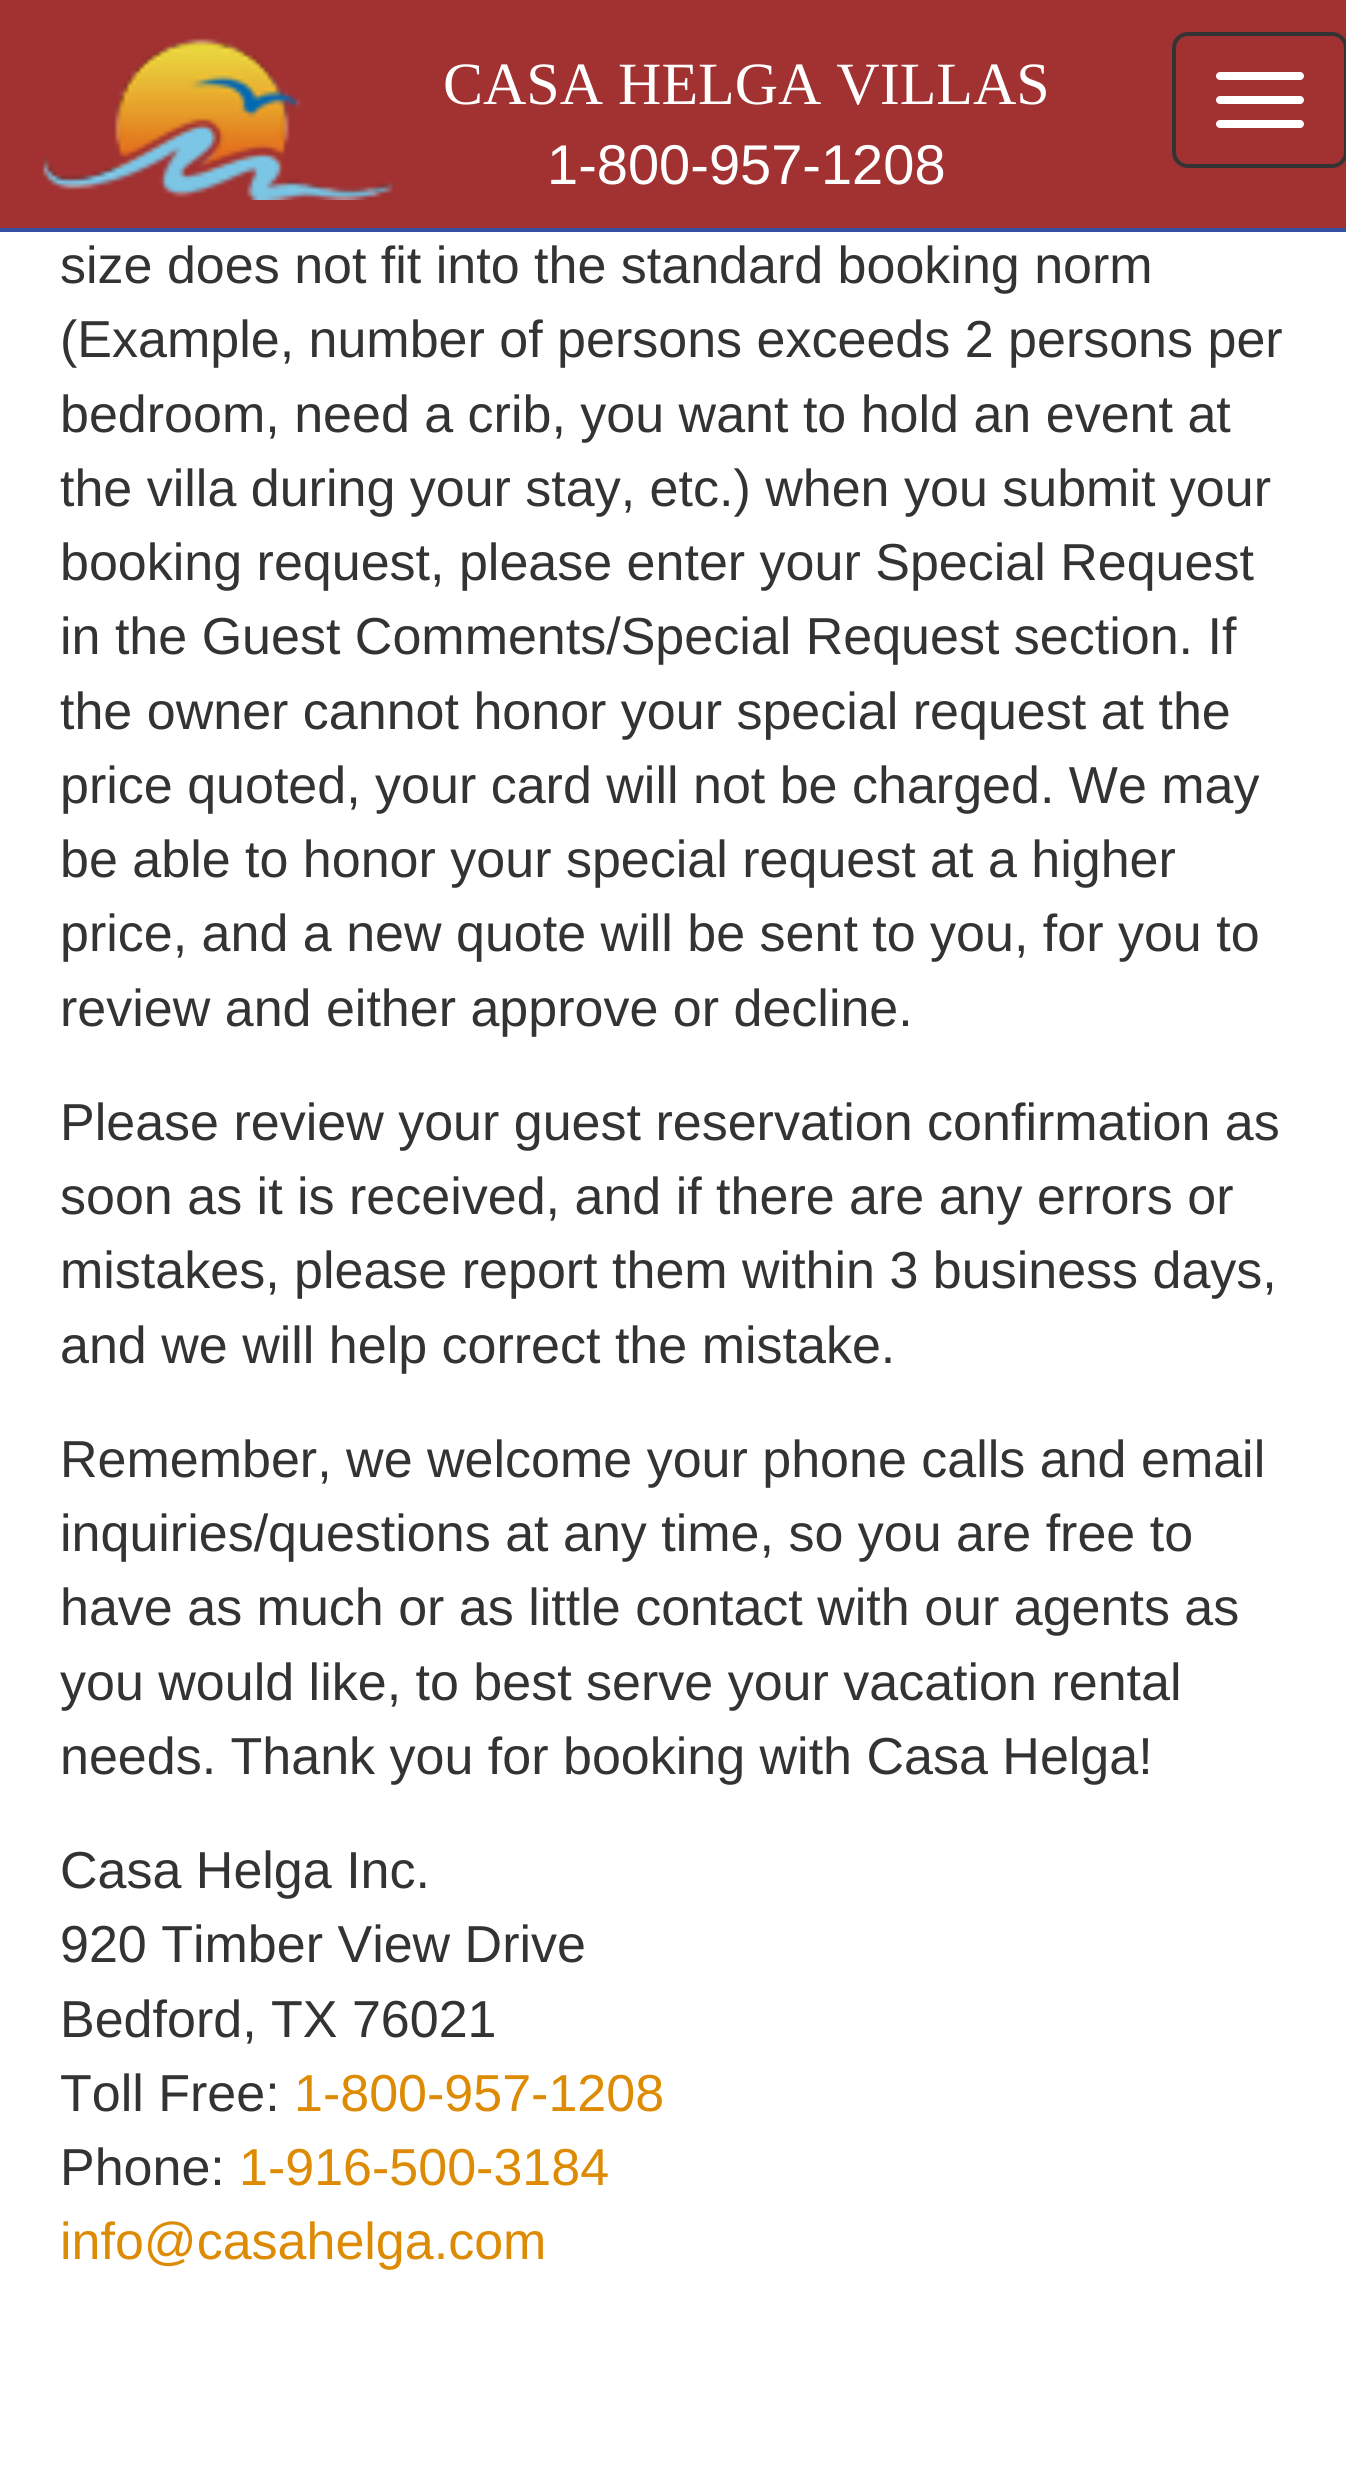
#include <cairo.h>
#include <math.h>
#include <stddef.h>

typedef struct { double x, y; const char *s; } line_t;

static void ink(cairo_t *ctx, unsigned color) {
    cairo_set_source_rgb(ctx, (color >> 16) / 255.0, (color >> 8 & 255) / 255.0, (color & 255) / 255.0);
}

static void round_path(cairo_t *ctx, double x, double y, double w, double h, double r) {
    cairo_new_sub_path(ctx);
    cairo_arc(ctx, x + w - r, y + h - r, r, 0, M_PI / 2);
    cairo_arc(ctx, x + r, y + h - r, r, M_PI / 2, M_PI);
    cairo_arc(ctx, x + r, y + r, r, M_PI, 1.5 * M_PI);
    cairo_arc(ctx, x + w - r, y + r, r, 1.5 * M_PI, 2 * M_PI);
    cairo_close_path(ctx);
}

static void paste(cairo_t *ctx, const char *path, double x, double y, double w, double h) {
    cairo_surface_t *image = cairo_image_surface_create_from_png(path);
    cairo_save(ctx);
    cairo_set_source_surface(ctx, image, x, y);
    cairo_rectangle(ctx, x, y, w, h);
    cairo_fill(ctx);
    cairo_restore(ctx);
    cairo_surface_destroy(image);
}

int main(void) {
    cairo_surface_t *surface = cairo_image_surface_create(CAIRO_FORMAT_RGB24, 1346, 2470);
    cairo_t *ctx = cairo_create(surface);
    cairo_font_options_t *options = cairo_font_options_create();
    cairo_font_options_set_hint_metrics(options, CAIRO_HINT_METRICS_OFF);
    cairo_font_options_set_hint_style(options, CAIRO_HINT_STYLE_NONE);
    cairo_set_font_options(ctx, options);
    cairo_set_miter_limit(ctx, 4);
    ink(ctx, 0xFFFFFF);
    cairo_paint(ctx);
    ink(ctx, 0xA23131);
    cairo_rectangle(ctx, 0, 0, 1346, 228);
    cairo_fill(ctx);
    ink(ctx, 0x3351A0);
    cairo_rectangle(ctx, 0, 228, 1346, 4);
    cairo_fill(ctx);
    paste(ctx, "media/1.png", 42, 38, 352, 162);
    cairo_select_font_face(ctx, "Liberation Serif", CAIRO_FONT_SLANT_NORMAL, CAIRO_FONT_WEIGHT_NORMAL);
    cairo_set_font_size(ctx, 60);
    ink(ctx, 0xFFFFFF);
    cairo_move_to(ctx, 443, 104);
    cairo_show_text(ctx, "CASA HELGA VILLAS");
    cairo_select_font_face(ctx, "Liberation Sans", CAIRO_FONT_SLANT_NORMAL, CAIRO_FONT_WEIGHT_NORMAL);
    cairo_set_font_size(ctx, 56);
    cairo_move_to(ctx, 547, 184);
    cairo_show_text(ctx, "1-800-957-1208");
    round_path(ctx, 1174, 34, 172, 132, 14);
    ink(ctx, 0x333333);
    cairo_set_line_width(ctx, 4);
    cairo_stroke(ctx);
    ink(ctx, 0xFFFFFF);
    round_path(ctx, 1216, 72, 88, 8, 4);
    cairo_fill(ctx);
    round_path(ctx, 1216, 96, 88, 8, 4);
    cairo_fill(ctx);
    round_path(ctx, 1216, 120, 88, 8, 4);
    cairo_fill(ctx);
    cairo_set_font_size(ctx, 52);
    ink(ctx, 0x333333);
    {
        static const line_t items[] = {
            {60, 283, "size does not fit into the standard booking norm"},
            {60, 357, "(Example, number of persons exceeds 2 persons per"},
            {60, 432, "bedroom, need a crib, you want to hold an event at"},
            {60, 506, "the villa during your stay, etc.) when you submit your"},
            {60, 580, "booking request, please enter your Special Request"},
            {60, 654, "in the Guest Comments/Special Request section. If"},
            {60, 729, "the owner cannot honor your special request at the"},
            {60, 803, "price quoted, your card will not be charged. We may"},
            {60, 877, "be able to honor your special request at a higher"},
            {60, 951, "price, and a new quote will be sent to you, for you to"},
            {60, 1026, "review and either approve or decline."},
            {60, 1140, "Please review your guest reservation confirmation as"},
            {60, 1214, "soon as it is received, and if there are any errors or"},
            {60, 1288, "mistakes, please report them within 3 business days,"},
            {60, 1363, "and we will help correct the mistake."},
            {60, 1477, "Remember, we welcome your phone calls and email"},
            {60, 1551, "inquiries/questions at any time, so you are free to"},
            {60, 1625, "have as much or as little contact with our agents as"},
            {60, 1700, "you would like, to best serve your vacation rental"},
            {60, 1774, "needs. Thank you for booking with Casa Helga!"},
            {60, 1888, "Casa Helga Inc."},
            {60, 1962, "920 Timber View Drive"},
            {60, 2037, "Bedford, TX 76021"},
            {60, 2111, "Toll Free:"},
        };
        for (size_t i = 0; i < sizeof items / sizeof *items; i++) {
            cairo_move_to(ctx, items[i].x, items[i].y);
            cairo_show_text(ctx, items[i].s);
        }
    }
    ink(ctx, 0xDD8B04);
    cairo_move_to(ctx, 294, 2111);
    cairo_show_text(ctx, "1-800-957-1208");
    ink(ctx, 0x333333);
    cairo_move_to(ctx, 60, 2185);
    cairo_show_text(ctx, "Phone:");
    ink(ctx, 0xDD8B04);
    cairo_move_to(ctx, 239, 2185);
    cairo_show_text(ctx, "1-916-500-3184");
    cairo_move_to(ctx, 60, 2259);
    cairo_show_text(ctx, "info@casahelga.com");
    cairo_surface_write_to_png(surface, "image.png");
    cairo_font_options_destroy(options);
    cairo_destroy(ctx);
    cairo_surface_destroy(surface);
    return 0;
}
